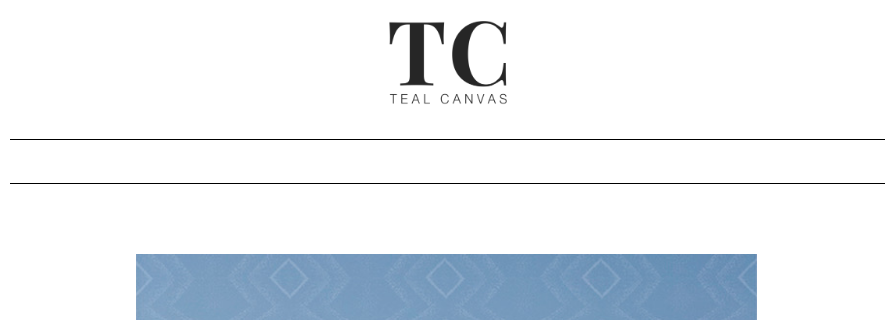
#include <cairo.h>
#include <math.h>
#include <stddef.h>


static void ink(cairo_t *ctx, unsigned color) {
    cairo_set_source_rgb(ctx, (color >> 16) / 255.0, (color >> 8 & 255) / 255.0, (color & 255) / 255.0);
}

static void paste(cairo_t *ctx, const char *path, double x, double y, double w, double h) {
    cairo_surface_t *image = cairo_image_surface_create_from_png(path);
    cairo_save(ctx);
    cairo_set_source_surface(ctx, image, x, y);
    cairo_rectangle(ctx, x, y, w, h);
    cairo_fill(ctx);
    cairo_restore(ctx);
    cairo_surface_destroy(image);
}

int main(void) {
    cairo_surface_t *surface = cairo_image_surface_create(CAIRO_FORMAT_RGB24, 895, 320);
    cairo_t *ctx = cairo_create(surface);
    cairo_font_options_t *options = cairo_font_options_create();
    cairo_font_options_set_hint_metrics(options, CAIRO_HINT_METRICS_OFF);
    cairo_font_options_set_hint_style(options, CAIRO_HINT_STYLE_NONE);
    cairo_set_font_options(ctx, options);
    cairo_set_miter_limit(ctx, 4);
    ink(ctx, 0xFFFFFF);
    cairo_paint(ctx);
    paste(ctx, "media/1.png", 389, 21, 118, 84);
    ink(ctx, 0x000000);
    cairo_rectangle(ctx, 10, 139, 875, 1);
    cairo_fill(ctx);
    cairo_rectangle(ctx, 10, 183, 875, 1);
    cairo_fill(ctx);
    paste(ctx, "media/2.png", 136, 254, 621, 66);
    cairo_surface_write_to_png(surface, "image.png");
    cairo_font_options_destroy(options);
    cairo_destroy(ctx);
    cairo_surface_destroy(surface);
    return 0;
}
